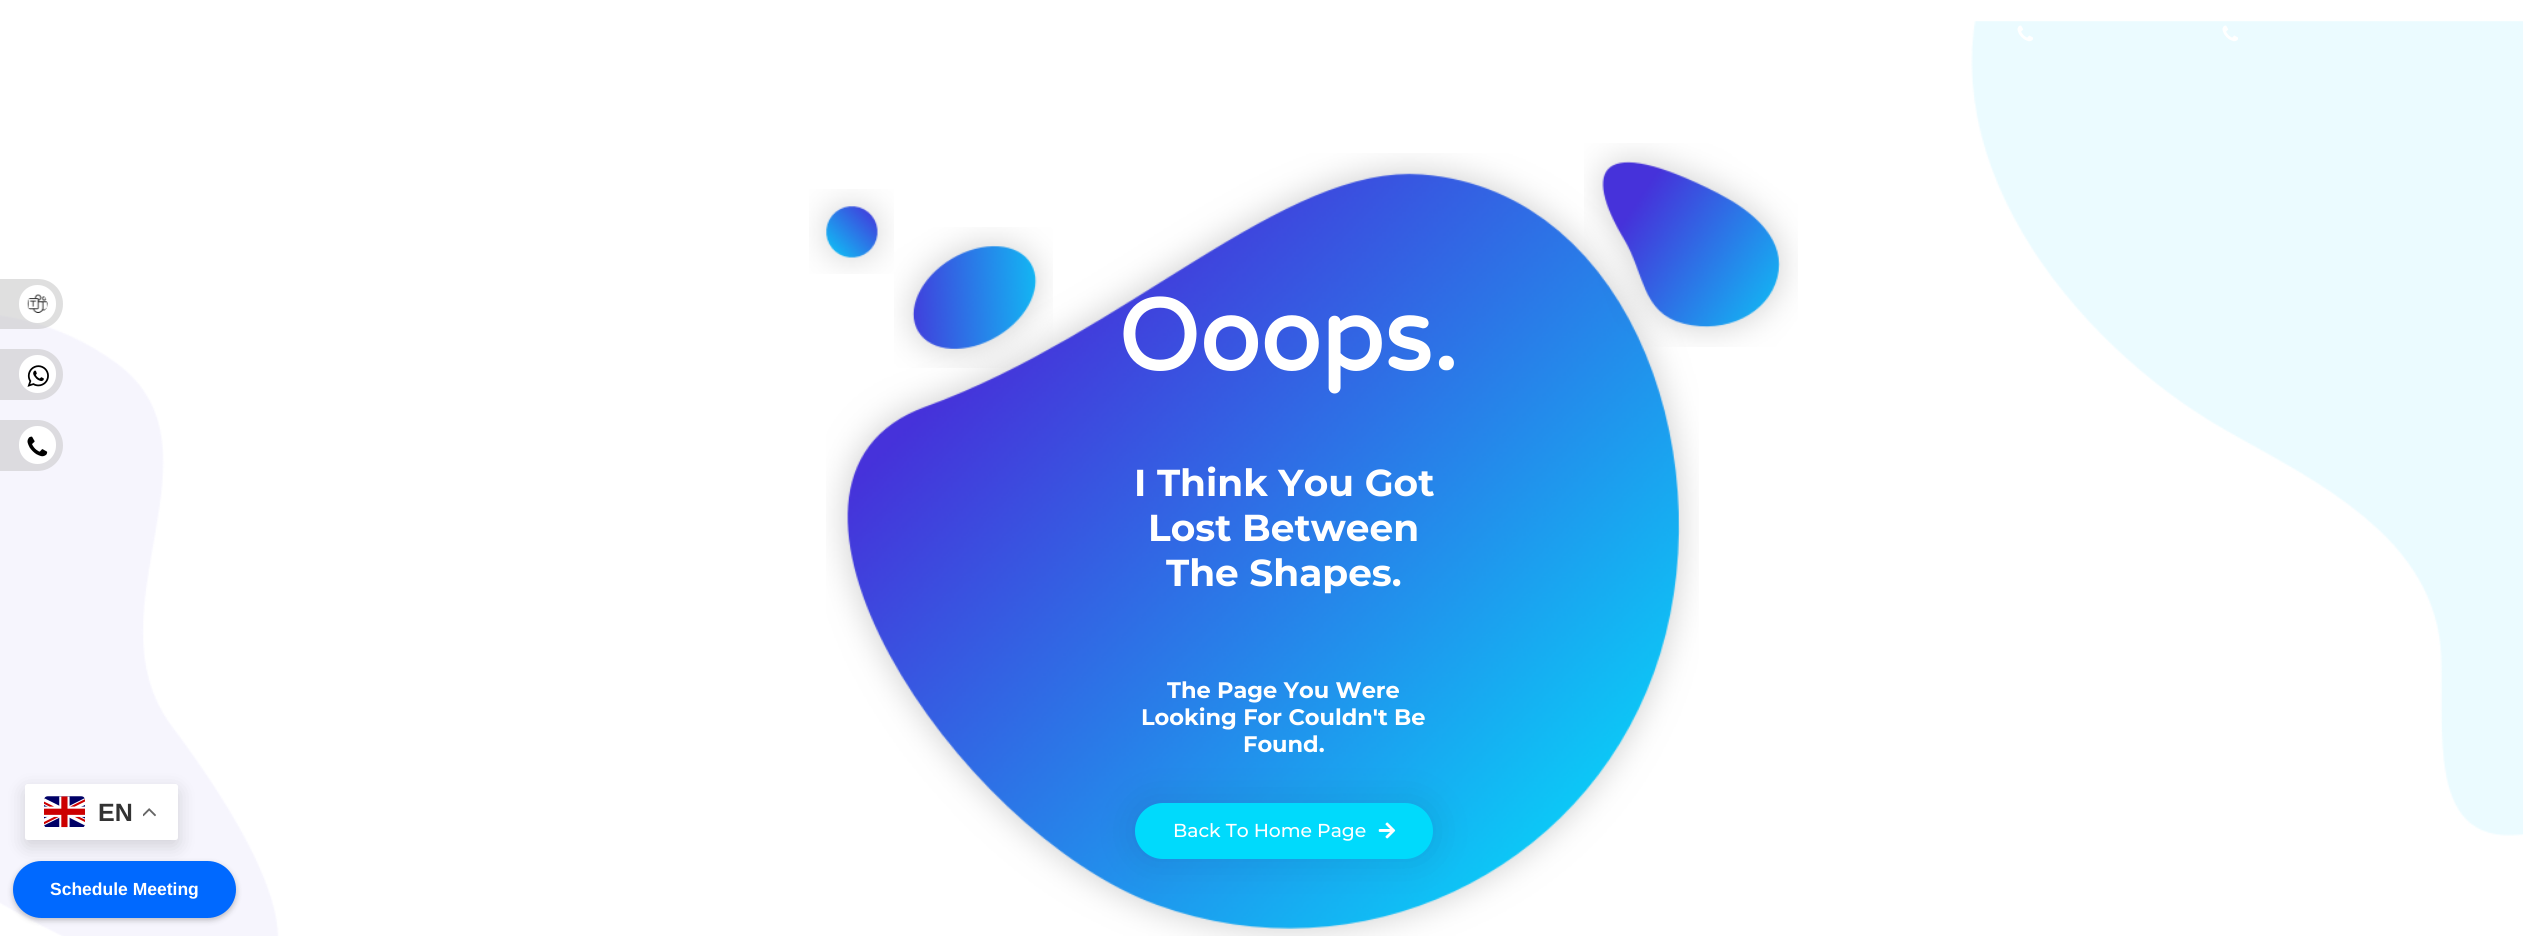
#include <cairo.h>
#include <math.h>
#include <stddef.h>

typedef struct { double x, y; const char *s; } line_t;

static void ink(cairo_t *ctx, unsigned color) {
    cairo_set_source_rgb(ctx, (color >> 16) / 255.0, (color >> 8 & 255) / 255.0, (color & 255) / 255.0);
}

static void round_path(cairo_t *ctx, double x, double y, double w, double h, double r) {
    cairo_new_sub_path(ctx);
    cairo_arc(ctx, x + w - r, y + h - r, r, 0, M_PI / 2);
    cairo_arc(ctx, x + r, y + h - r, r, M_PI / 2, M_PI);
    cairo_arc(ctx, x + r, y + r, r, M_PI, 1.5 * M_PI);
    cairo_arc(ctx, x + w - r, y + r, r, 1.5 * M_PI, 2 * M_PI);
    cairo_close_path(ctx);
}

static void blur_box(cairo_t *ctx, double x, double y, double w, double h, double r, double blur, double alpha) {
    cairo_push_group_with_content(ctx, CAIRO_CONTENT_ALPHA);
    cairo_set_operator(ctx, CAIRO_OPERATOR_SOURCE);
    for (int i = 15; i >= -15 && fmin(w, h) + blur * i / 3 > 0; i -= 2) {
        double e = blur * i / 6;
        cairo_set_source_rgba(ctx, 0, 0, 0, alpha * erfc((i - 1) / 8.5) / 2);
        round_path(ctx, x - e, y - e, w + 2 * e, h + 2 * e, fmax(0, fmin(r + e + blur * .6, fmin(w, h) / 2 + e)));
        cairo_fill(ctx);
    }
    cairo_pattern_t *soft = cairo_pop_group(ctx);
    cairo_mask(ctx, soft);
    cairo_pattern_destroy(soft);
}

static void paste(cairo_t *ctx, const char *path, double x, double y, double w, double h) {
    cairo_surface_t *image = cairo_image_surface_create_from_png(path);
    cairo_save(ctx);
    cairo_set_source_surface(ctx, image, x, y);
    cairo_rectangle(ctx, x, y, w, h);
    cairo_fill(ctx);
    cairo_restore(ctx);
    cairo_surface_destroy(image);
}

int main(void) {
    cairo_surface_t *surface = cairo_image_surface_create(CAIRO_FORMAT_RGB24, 2523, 936);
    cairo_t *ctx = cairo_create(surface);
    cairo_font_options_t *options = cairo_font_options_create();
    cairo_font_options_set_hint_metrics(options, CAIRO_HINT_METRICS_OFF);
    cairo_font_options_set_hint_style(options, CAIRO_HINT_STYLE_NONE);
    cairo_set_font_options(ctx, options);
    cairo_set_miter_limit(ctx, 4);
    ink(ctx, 0xFFFFFF);
    cairo_paint(ctx);
    paste(ctx, "media/7.png", 0, 21, 2523, 915);
    paste(ctx, "media/1.png", 2017, 25, 16, 17);
    paste(ctx, "media/1.png", 2222, 25, 16, 17);
    cairo_set_source_rgba(ctx, 0.757, 0.757, 0.757, 0.5);
    cairo_new_path(ctx);
    cairo_move_to(ctx, -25, 279);
    cairo_line_to(ctx, 38, 279);
    cairo_curve_to(ctx, 52, 279, 63, 290, 63, 304);
    cairo_curve_to(ctx, 63, 318, 52, 329, 38, 329);
    cairo_line_to(ctx, -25, 329);
    cairo_close_path(ctx);
    cairo_fill(ctx);
    ink(ctx, 0xFFFFFF);
    round_path(ctx, 19, 285, 37, 38, 18.5);
    cairo_fill(ctx);
    paste(ctx, "media/2.png", 27, 294, 21, 19);
    ink(ctx, 0xDCDBDF);
    cairo_new_path(ctx);
    cairo_move_to(ctx, -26, 349);
    cairo_line_to(ctx, 37.5, 349);
    cairo_curve_to(ctx, 51.5, 349, 63, 360.5, 63, 374.5);
    cairo_curve_to(ctx, 63, 388.5, 51.5, 400, 37.5, 400);
    cairo_line_to(ctx, -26, 400);
    cairo_close_path(ctx);
    cairo_fill(ctx);
    ink(ctx, 0xFFFFFF);
    round_path(ctx, 19, 355, 37, 38, 18.5);
    cairo_fill(ctx);
    paste(ctx, "media/3.png", 27, 365, 22, 22);
    ink(ctx, 0xDCDBDF);
    cairo_new_path(ctx);
    cairo_move_to(ctx, -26, 420);
    cairo_line_to(ctx, 37.5, 420);
    cairo_curve_to(ctx, 51.5, 420, 63, 431.5, 63, 445.5);
    cairo_curve_to(ctx, 63, 459.5, 51.5, 471, 37.5, 471);
    cairo_line_to(ctx, -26, 471);
    cairo_close_path(ctx);
    cairo_fill(ctx);
    ink(ctx, 0xFFFFFF);
    round_path(ctx, 19, 426, 37, 38, 18.5);
    cairo_fill(ctx);
    paste(ctx, "media/4.png", 27, 436, 21, 21);
    ink(ctx, 0x000000);
    blur_box(ctx, 13, 864, 223, 56, 28, 3, 0.25);
    ink(ctx, 0x0069FF);
    round_path(ctx, 13, 861, 223, 57, 28.5);
    cairo_fill(ctx);
    ink(ctx, 0x000000);
    blur_box(ctx, 25, 790, 153, 56, 2.5, 9.5, 0.15);
    ink(ctx, 0xFFFFFF);
    round_path(ctx, 25, 784, 153, 56, 2.5);
    cairo_fill(ctx);
    paste(ctx, "media/5.png", 44, 796, 41, 32);
    cairo_select_font_face(ctx, "Liberation Sans", CAIRO_FONT_SLANT_NORMAL, CAIRO_FONT_WEIGHT_BOLD);
    cairo_set_font_size(ctx, 25);
    ink(ctx, 0x333333);
    cairo_move_to(ctx, 98, 821);
    cairo_show_text(ctx, "EN");
    paste(ctx, "media/6.png", 143, 808, 13, 9);
    paste(ctx, "media/10.png", 826, 153, 873, 783);
    paste(ctx, "media/8.png", 809, 189, 85, 85);
    paste(ctx, "media/9.png", 894, 227, 159, 141);
    cairo_select_font_face(ctx, "Varela Round", CAIRO_FONT_SLANT_NORMAL, CAIRO_FONT_WEIGHT_BOLD);
    cairo_set_font_size(ctx, 100);
    ink(ctx, 0xFFFFFF);
    cairo_move_to(ctx, 1118, 370);
    cairo_show_text(ctx, "Ooops.");
    cairo_select_font_face(ctx, "Montserrat", CAIRO_FONT_SLANT_NORMAL, CAIRO_FONT_WEIGHT_BOLD);
    cairo_set_font_size(ctx, 37.5);
    {
        static const line_t items[] = {
            {1134, 496, "I Think You Got"},
            {1148, 541, "Lost Between"},
            {1166, 586, "The Shapes."},
        };
        for (size_t i = 0; i < sizeof items / sizeof *items; i++) {
            cairo_move_to(ctx, items[i].x, items[i].y);
            cairo_show_text(ctx, items[i].s);
        }
    }
    cairo_set_font_size(ctx, 22.5);
    {
        static const line_t items[] = {
            {1167, 698, "The Page You Were"},
            {1141, 725, "Looking For Couldn't Be"},
            {1243, 752, "Found."},
        };
        for (size_t i = 0; i < sizeof items / sizeof *items; i++) {
            cairo_move_to(ctx, items[i].x, items[i].y);
            cairo_show_text(ctx, items[i].s);
        }
    }
    ink(ctx, 0x000000);
    blur_box(ctx, 1135, 803, 298, 56, 28, 19, 0.1);
    ink(ctx, 0x00DAFC);
    round_path(ctx, 1135, 803, 298, 56, 28);
    cairo_fill(ctx);
    cairo_select_font_face(ctx, "Montserrat Medium", CAIRO_FONT_SLANT_NORMAL, CAIRO_FONT_WEIGHT_NORMAL);
    cairo_set_font_size(ctx, 18.75);
    ink(ctx, 0xFFFFFF);
    cairo_move_to(ctx, 1173, 837);
    cairo_show_text(ctx, "Back To Home Page");
    paste(ctx, "media/11.png", 1378, 822, 18, 17);
    paste(ctx, "media/12.png", 1584, 143, 214, 204);
    cairo_select_font_face(ctx, "Liberation Sans", CAIRO_FONT_SLANT_NORMAL, CAIRO_FONT_WEIGHT_BOLD);
    cairo_set_font_size(ctx, 17.5);
    cairo_move_to(ctx, 50, 895);
    cairo_show_text(ctx, "Schedule Meeting");
    cairo_surface_write_to_png(surface, "image.png");
    cairo_font_options_destroy(options);
    cairo_destroy(ctx);
    cairo_surface_destroy(surface);
    return 0;
}
